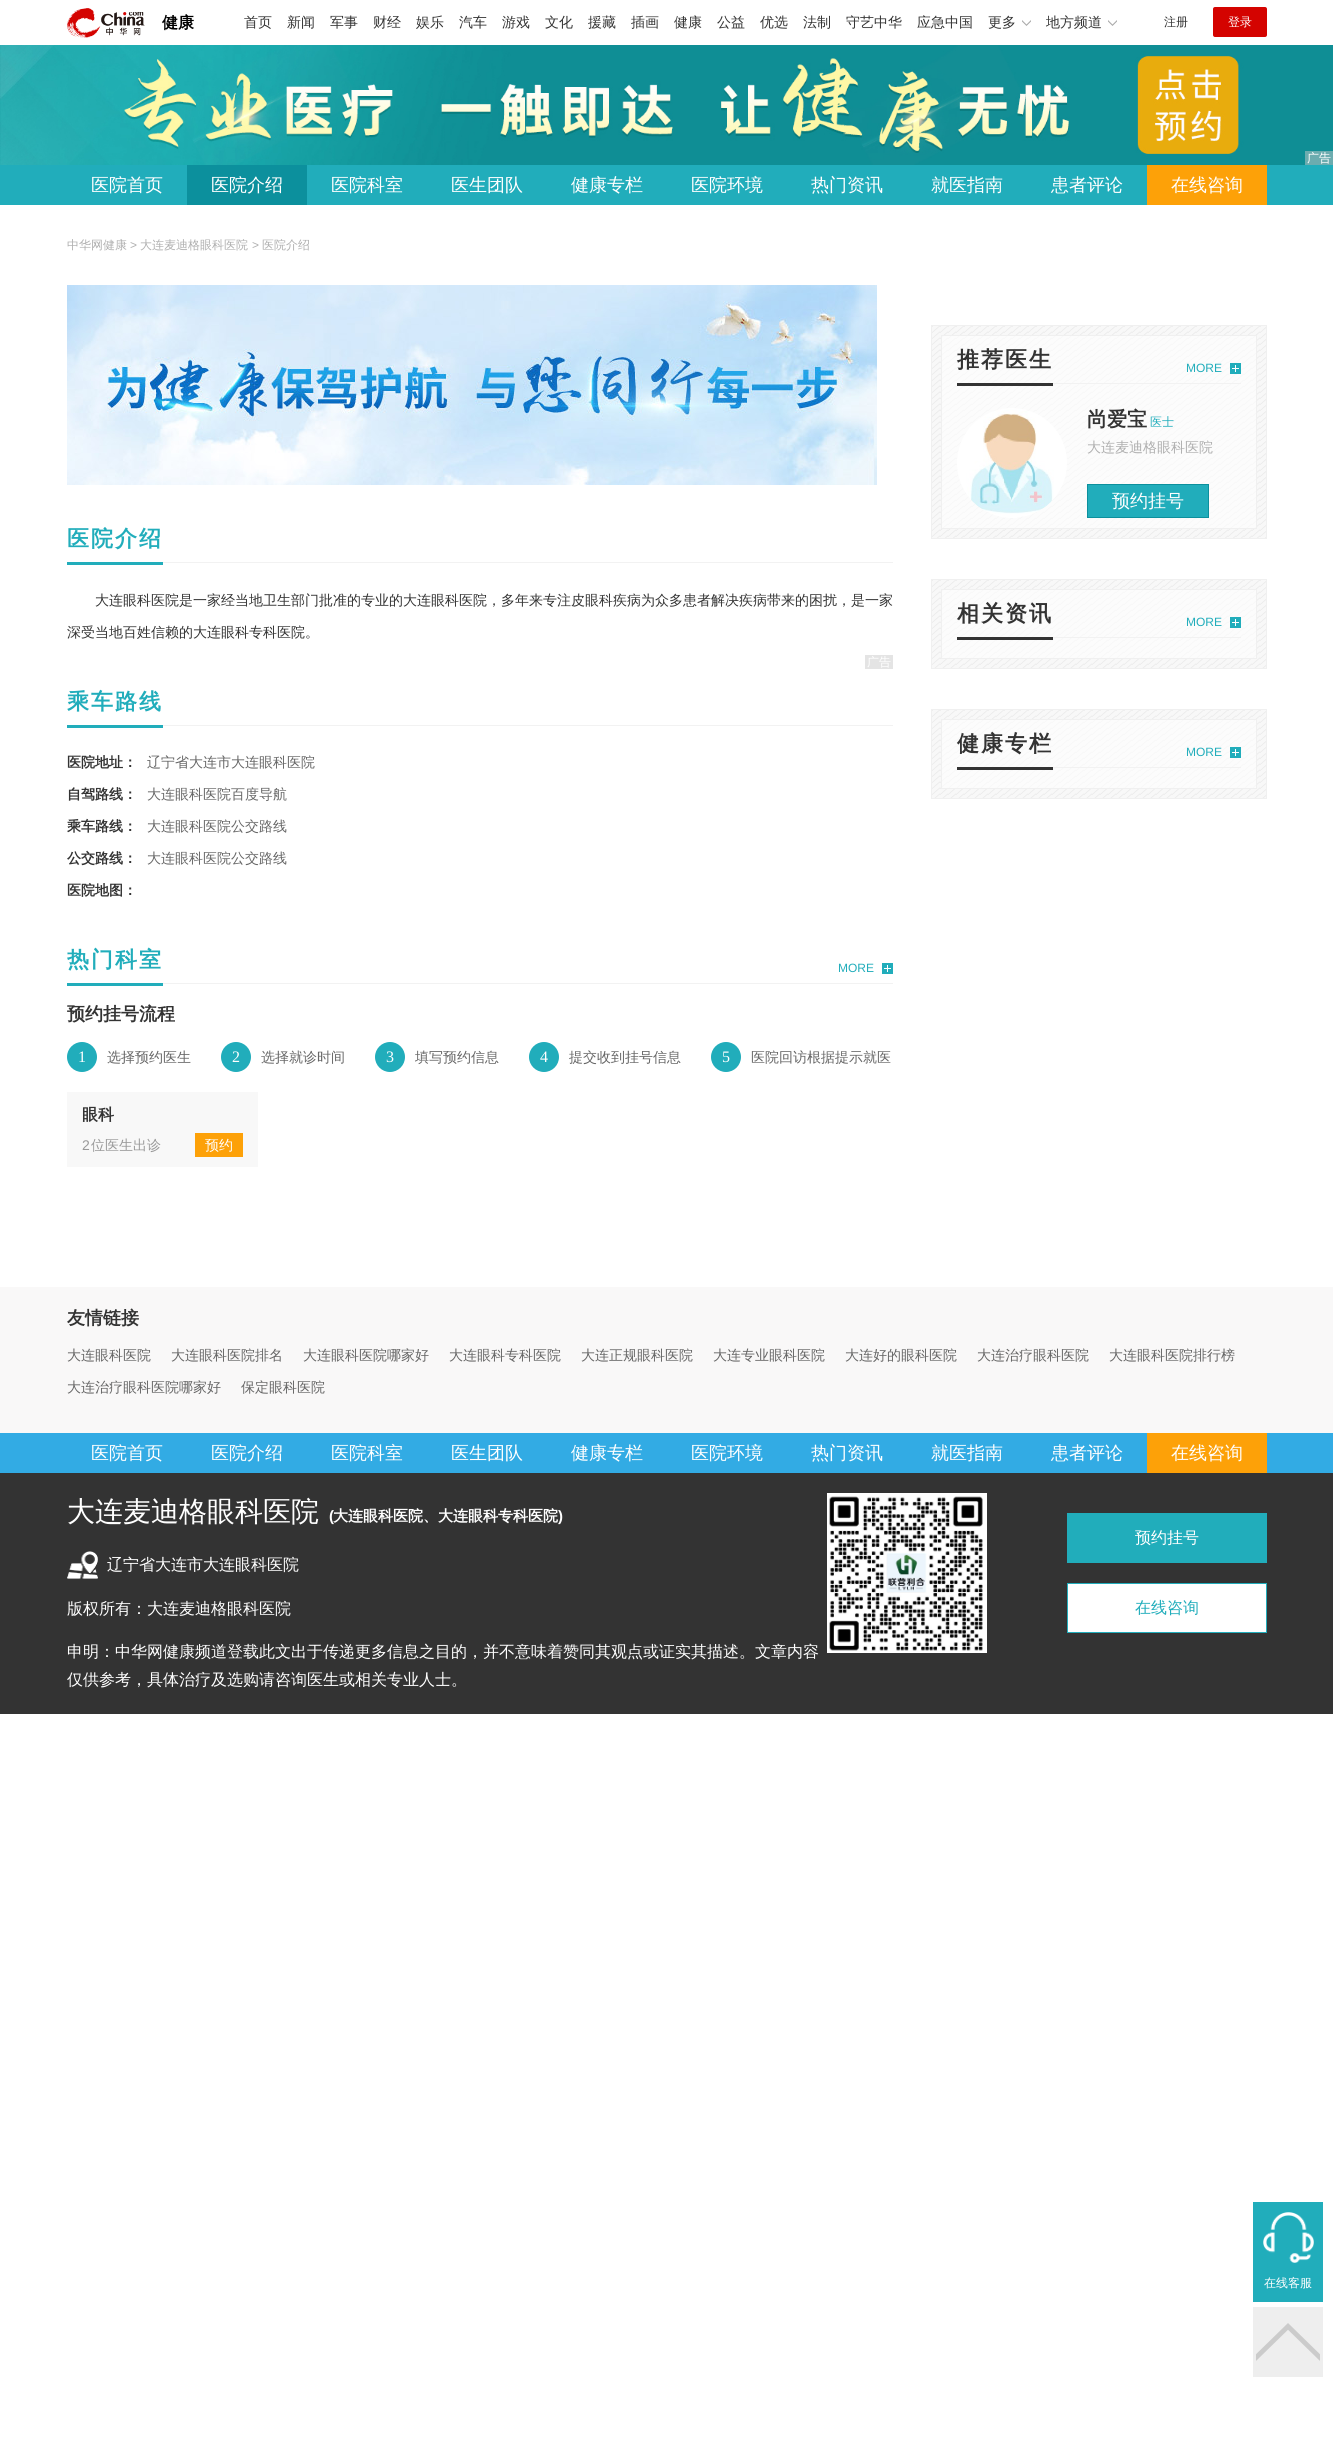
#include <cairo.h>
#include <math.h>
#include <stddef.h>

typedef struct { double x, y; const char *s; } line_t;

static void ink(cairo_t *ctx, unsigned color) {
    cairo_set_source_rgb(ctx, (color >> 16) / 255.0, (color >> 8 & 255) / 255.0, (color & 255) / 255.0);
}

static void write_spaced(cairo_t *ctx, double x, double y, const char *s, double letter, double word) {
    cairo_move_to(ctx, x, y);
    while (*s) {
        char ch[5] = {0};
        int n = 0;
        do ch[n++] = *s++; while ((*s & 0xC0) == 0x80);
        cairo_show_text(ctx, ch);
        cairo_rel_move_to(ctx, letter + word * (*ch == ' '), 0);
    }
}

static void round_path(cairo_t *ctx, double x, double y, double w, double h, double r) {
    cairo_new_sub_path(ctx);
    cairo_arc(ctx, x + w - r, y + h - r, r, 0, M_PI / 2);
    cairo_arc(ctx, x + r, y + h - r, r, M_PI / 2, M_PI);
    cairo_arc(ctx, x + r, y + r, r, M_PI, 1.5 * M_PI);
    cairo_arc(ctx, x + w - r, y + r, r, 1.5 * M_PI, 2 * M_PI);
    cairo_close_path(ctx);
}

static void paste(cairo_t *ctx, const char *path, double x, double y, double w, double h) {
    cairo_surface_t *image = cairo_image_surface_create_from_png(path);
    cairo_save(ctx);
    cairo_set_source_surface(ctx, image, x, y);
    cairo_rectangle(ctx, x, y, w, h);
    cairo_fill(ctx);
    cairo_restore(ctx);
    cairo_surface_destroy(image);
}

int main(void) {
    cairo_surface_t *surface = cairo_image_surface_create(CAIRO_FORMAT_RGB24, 1333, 2437);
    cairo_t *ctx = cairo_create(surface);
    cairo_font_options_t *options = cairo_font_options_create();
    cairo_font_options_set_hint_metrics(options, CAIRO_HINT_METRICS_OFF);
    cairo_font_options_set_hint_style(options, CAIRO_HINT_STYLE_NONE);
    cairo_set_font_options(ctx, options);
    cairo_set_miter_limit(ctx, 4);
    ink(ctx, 0xFFFFFF);
    cairo_paint(ctx);
    paste(ctx, "media/1.png", 67, 8, 78, 30);
    cairo_select_font_face(ctx, "WenQuanYi Zen Hei", CAIRO_FONT_SLANT_NORMAL, CAIRO_FONT_WEIGHT_BOLD);
    cairo_set_font_size(ctx, 16);
    ink(ctx, 0x000000);
    cairo_move_to(ctx, 162, 28);
    cairo_show_text(ctx, "健康");
    cairo_select_font_face(ctx, "WenQuanYi Zen Hei Medium", CAIRO_FONT_SLANT_NORMAL, CAIRO_FONT_WEIGHT_NORMAL);
    cairo_set_font_size(ctx, 14);
    ink(ctx, 0x333333);
    {
        static const line_t items[] = {
            {244, 27, "首页"},
            {287, 27, "新闻"},
            {330, 27, "军事"},
            {373, 27, "财经"},
            {416, 27, "娱乐"},
            {459, 27, "汽车"},
            {502, 27, "游戏"},
            {545, 27, "文化"},
            {588, 27, "援藏"},
            {631, 27, "插画"},
            {674, 27, "健康"},
            {717, 27, "公益"},
            {760, 27, "优选"},
            {803, 27, "法制"},
            {846, 27, "守艺中华"},
            {917, 27, "应急中国"},
            {988, 27, "更多"},
        };
        for (size_t i = 0; i < sizeof items / sizeof *items; i++) {
            cairo_move_to(ctx, items[i].x, items[i].y);
            cairo_show_text(ctx, items[i].s);
        }
    }
    paste(ctx, "media/2.png", 1022, 20, 9, 6);
    cairo_move_to(ctx, 1046, 27);
    cairo_show_text(ctx, "地方频道");
    paste(ctx, "media/2.png", 1108, 20, 9, 6);
    cairo_set_font_size(ctx, 12);
    cairo_move_to(ctx, 1164, 26);
    cairo_show_text(ctx, "注册");
    ink(ctx, 0xD40300);
    round_path(ctx, 1213, 7, 54, 30, 2);
    cairo_fill(ctx);
    ink(ctx, 0xFFFFFF);
    cairo_move_to(ctx, 1228, 26);
    cairo_show_text(ctx, "登录");
    paste(ctx, "media/3.png", 0, 45, 1333, 120);
    ink(ctx, 0x6CACAF);
    cairo_rectangle(ctx, 1305, 151, 28, 14);
    cairo_fill(ctx);
    ink(ctx, 0xFFFFFF);
    cairo_move_to(ctx, 1307, 162);
    cairo_show_text(ctx, "广告");
    ink(ctx, 0x21ADBB);
    cairo_rectangle(ctx, 0, 165, 1333, 40);
    cairo_fill(ctx);
    cairo_set_font_size(ctx, 18);
    ink(ctx, 0xFFFFFF);
    cairo_move_to(ctx, 91, 191);
    cairo_show_text(ctx, "医院首页");
    ink(ctx, 0x0C909D);
    cairo_rectangle(ctx, 187, 165, 120, 40);
    cairo_fill(ctx);
    ink(ctx, 0xFFFFFF);
    {
        static const line_t items[] = {
            {211, 191, "医院介绍"},
            {331, 191, "医院科室"},
            {451, 191, "医生团队"},
            {571, 191, "健康专栏"},
            {691, 191, "医院环境"},
            {811, 191, "热门资讯"},
            {931, 191, "就医指南"},
            {1051, 191, "患者评论"},
        };
        for (size_t i = 0; i < sizeof items / sizeof *items; i++) {
            cairo_move_to(ctx, items[i].x, items[i].y);
            cairo_show_text(ctx, items[i].s);
        }
    }
    ink(ctx, 0xFDA108);
    cairo_rectangle(ctx, 1147, 165, 120, 40);
    cairo_fill(ctx);
    ink(ctx, 0xFFFFFF);
    cairo_move_to(ctx, 1171, 191);
    cairo_show_text(ctx, "在线咨询");
    cairo_set_font_size(ctx, 12);
    ink(ctx, 0xAFAFAF);
    cairo_move_to(ctx, 67, 249);
    cairo_show_text(ctx, "中华网健康");
    cairo_select_font_face(ctx, "Liberation Sans", CAIRO_FONT_SLANT_NORMAL, CAIRO_FONT_WEIGHT_NORMAL);
    cairo_move_to(ctx, 130, 249);
    cairo_show_text(ctx, ">");
    cairo_select_font_face(ctx, "WenQuanYi Zen Hei Medium", CAIRO_FONT_SLANT_NORMAL, CAIRO_FONT_WEIGHT_NORMAL);
    cairo_move_to(ctx, 140, 249);
    cairo_show_text(ctx, "大连麦迪格眼科医院");
    cairo_select_font_face(ctx, "Liberation Sans", CAIRO_FONT_SLANT_NORMAL, CAIRO_FONT_WEIGHT_NORMAL);
    cairo_move_to(ctx, 252, 249);
    cairo_show_text(ctx, ">");
    cairo_select_font_face(ctx, "WenQuanYi Zen Hei Medium", CAIRO_FONT_SLANT_NORMAL, CAIRO_FONT_WEIGHT_NORMAL);
    cairo_move_to(ctx, 262, 249);
    cairo_show_text(ctx, "医院介绍");
    paste(ctx, "media/4.png", 67, 285, 810, 200);
    ink(ctx, 0xF2F2F2);
    cairo_rectangle(ctx, 163, 562, 730, 1);
    cairo_fill(ctx);
    ink(ctx, 0x21ADBB);
    cairo_rectangle(ctx, 67, 562, 96, 3);
    cairo_fill(ctx);
    cairo_select_font_face(ctx, "WenQuanYi Zen Hei", CAIRO_FONT_SLANT_NORMAL, CAIRO_FONT_WEIGHT_BOLD);
    cairo_set_font_size(ctx, 22);
    write_spaced(ctx, 67, 546, "医院介绍", 2, 0);
    cairo_select_font_face(ctx, "WenQuanYi Zen Hei Medium", CAIRO_FONT_SLANT_NORMAL, CAIRO_FONT_WEIGHT_NORMAL);
    cairo_set_font_size(ctx, 14);
    ink(ctx, 0x333333);
    cairo_move_to(ctx, 95, 605);
    cairo_show_text(ctx, "大连眼科医院是一家经当地卫生部门批准的专业的大连眼科医院，多年来专注皮眼科疾病为众多患者解决疾病带来的困扰，是一家");
    cairo_move_to(ctx, 67, 637);
    cairo_show_text(ctx, "深受当地百姓信赖的大连眼科专科医院。");
    ink(ctx, 0xE4E4E4);
    cairo_rectangle(ctx, 865, 655, 28, 14);
    cairo_fill(ctx);
    cairo_set_font_size(ctx, 12);
    ink(ctx, 0xFFFFFF);
    cairo_move_to(ctx, 867, 666);
    cairo_show_text(ctx, "广告");
    ink(ctx, 0xF2F2F2);
    cairo_rectangle(ctx, 163, 725, 730, 1);
    cairo_fill(ctx);
    ink(ctx, 0x21ADBB);
    cairo_rectangle(ctx, 67, 725, 96, 3);
    cairo_fill(ctx);
    cairo_select_font_face(ctx, "WenQuanYi Zen Hei", CAIRO_FONT_SLANT_NORMAL, CAIRO_FONT_WEIGHT_BOLD);
    cairo_set_font_size(ctx, 22);
    write_spaced(ctx, 67, 709, "乘车路线", 2, 0);
    cairo_set_font_size(ctx, 14);
    ink(ctx, 0x333333);
    cairo_move_to(ctx, 67, 767);
    cairo_show_text(ctx, "医院地址：");
    cairo_select_font_face(ctx, "WenQuanYi Zen Hei Medium", CAIRO_FONT_SLANT_NORMAL, CAIRO_FONT_WEIGHT_NORMAL);
    ink(ctx, 0x666666);
    cairo_move_to(ctx, 147, 767);
    cairo_show_text(ctx, "辽宁省大连市大连眼科医院");
    cairo_select_font_face(ctx, "WenQuanYi Zen Hei", CAIRO_FONT_SLANT_NORMAL, CAIRO_FONT_WEIGHT_BOLD);
    ink(ctx, 0x333333);
    cairo_move_to(ctx, 67, 799);
    cairo_show_text(ctx, "自驾路线：");
    cairo_select_font_face(ctx, "WenQuanYi Zen Hei Medium", CAIRO_FONT_SLANT_NORMAL, CAIRO_FONT_WEIGHT_NORMAL);
    ink(ctx, 0x666666);
    cairo_move_to(ctx, 147, 799);
    cairo_show_text(ctx, "大连眼科医院百度导航");
    cairo_select_font_face(ctx, "WenQuanYi Zen Hei", CAIRO_FONT_SLANT_NORMAL, CAIRO_FONT_WEIGHT_BOLD);
    ink(ctx, 0x333333);
    cairo_move_to(ctx, 67, 831);
    cairo_show_text(ctx, "乘车路线：");
    cairo_select_font_face(ctx, "WenQuanYi Zen Hei Medium", CAIRO_FONT_SLANT_NORMAL, CAIRO_FONT_WEIGHT_NORMAL);
    ink(ctx, 0x666666);
    cairo_move_to(ctx, 147, 831);
    cairo_show_text(ctx, "大连眼科医院公交路线");
    cairo_select_font_face(ctx, "WenQuanYi Zen Hei", CAIRO_FONT_SLANT_NORMAL, CAIRO_FONT_WEIGHT_BOLD);
    ink(ctx, 0x333333);
    cairo_move_to(ctx, 67, 863);
    cairo_show_text(ctx, "公交路线：");
    cairo_select_font_face(ctx, "WenQuanYi Zen Hei Medium", CAIRO_FONT_SLANT_NORMAL, CAIRO_FONT_WEIGHT_NORMAL);
    ink(ctx, 0x666666);
    cairo_move_to(ctx, 147, 863);
    cairo_show_text(ctx, "大连眼科医院公交路线");
    cairo_select_font_face(ctx, "WenQuanYi Zen Hei", CAIRO_FONT_SLANT_NORMAL, CAIRO_FONT_WEIGHT_BOLD);
    ink(ctx, 0x333333);
    cairo_move_to(ctx, 67, 895);
    cairo_show_text(ctx, "医院地图：");
    ink(ctx, 0xF2F2F2);
    cairo_rectangle(ctx, 163, 983, 730, 1);
    cairo_fill(ctx);
    ink(ctx, 0x21ADBB);
    cairo_rectangle(ctx, 67, 983, 96, 3);
    cairo_fill(ctx);
    cairo_set_font_size(ctx, 22);
    write_spaced(ctx, 67, 967, "热门科室", 2, 0);
    cairo_select_font_face(ctx, "Liberation Sans", CAIRO_FONT_SLANT_NORMAL, CAIRO_FONT_WEIGHT_NORMAL);
    cairo_set_font_size(ctx, 12);
    cairo_move_to(ctx, 838, 972);
    cairo_show_text(ctx, "MORE");
    paste(ctx, "media/5.png", 882, 963, 11, 11);
    cairo_select_font_face(ctx, "WenQuanYi Zen Hei", CAIRO_FONT_SLANT_NORMAL, CAIRO_FONT_WEIGHT_BOLD);
    cairo_set_font_size(ctx, 18);
    ink(ctx, 0x333333);
    cairo_move_to(ctx, 67, 1020);
    cairo_show_text(ctx, "预约挂号流程");
    ink(ctx, 0x21ADBB);
    cairo_new_path(ctx);
    cairo_arc(ctx, 82, 1057, 15, 0, 2 * M_PI);
    cairo_fill(ctx);
    cairo_select_font_face(ctx, "Liberation Serif", CAIRO_FONT_SLANT_NORMAL, CAIRO_FONT_WEIGHT_NORMAL);
    cairo_set_font_size(ctx, 16);
    ink(ctx, 0xFFFFFF);
    cairo_move_to(ctx, 78, 1062);
    cairo_show_text(ctx, "1");
    cairo_select_font_face(ctx, "WenQuanYi Zen Hei Medium", CAIRO_FONT_SLANT_NORMAL, CAIRO_FONT_WEIGHT_NORMAL);
    cairo_set_font_size(ctx, 14);
    ink(ctx, 0x666666);
    cairo_move_to(ctx, 107, 1062);
    cairo_show_text(ctx, "选择预约医生");
    ink(ctx, 0x21ADBB);
    cairo_new_path(ctx);
    cairo_arc(ctx, 236, 1057, 15, 0, 2 * M_PI);
    cairo_fill(ctx);
    cairo_select_font_face(ctx, "Liberation Serif", CAIRO_FONT_SLANT_NORMAL, CAIRO_FONT_WEIGHT_NORMAL);
    cairo_set_font_size(ctx, 16);
    ink(ctx, 0xFFFFFF);
    cairo_move_to(ctx, 232, 1062);
    cairo_show_text(ctx, "2");
    cairo_select_font_face(ctx, "WenQuanYi Zen Hei Medium", CAIRO_FONT_SLANT_NORMAL, CAIRO_FONT_WEIGHT_NORMAL);
    cairo_set_font_size(ctx, 14);
    ink(ctx, 0x666666);
    cairo_move_to(ctx, 261, 1062);
    cairo_show_text(ctx, "选择就诊时间");
    ink(ctx, 0x21ADBB);
    cairo_new_path(ctx);
    cairo_arc(ctx, 390, 1057, 15, 0, 2 * M_PI);
    cairo_fill(ctx);
    cairo_select_font_face(ctx, "Liberation Serif", CAIRO_FONT_SLANT_NORMAL, CAIRO_FONT_WEIGHT_NORMAL);
    cairo_set_font_size(ctx, 16);
    ink(ctx, 0xFFFFFF);
    cairo_move_to(ctx, 386, 1062);
    cairo_show_text(ctx, "3");
    cairo_select_font_face(ctx, "WenQuanYi Zen Hei Medium", CAIRO_FONT_SLANT_NORMAL, CAIRO_FONT_WEIGHT_NORMAL);
    cairo_set_font_size(ctx, 14);
    ink(ctx, 0x666666);
    cairo_move_to(ctx, 415, 1062);
    cairo_show_text(ctx, "填写预约信息");
    ink(ctx, 0x21ADBB);
    cairo_new_path(ctx);
    cairo_arc(ctx, 544, 1057, 15, 0, 2 * M_PI);
    cairo_fill(ctx);
    cairo_select_font_face(ctx, "Liberation Serif", CAIRO_FONT_SLANT_NORMAL, CAIRO_FONT_WEIGHT_NORMAL);
    cairo_set_font_size(ctx, 16);
    ink(ctx, 0xFFFFFF);
    cairo_move_to(ctx, 540, 1062);
    cairo_show_text(ctx, "4");
    cairo_select_font_face(ctx, "WenQuanYi Zen Hei Medium", CAIRO_FONT_SLANT_NORMAL, CAIRO_FONT_WEIGHT_NORMAL);
    cairo_set_font_size(ctx, 14);
    ink(ctx, 0x666666);
    cairo_move_to(ctx, 569, 1062);
    cairo_show_text(ctx, "提交收到挂号信息");
    ink(ctx, 0x21ADBB);
    cairo_new_path(ctx);
    cairo_arc(ctx, 726, 1057, 15, 0, 2 * M_PI);
    cairo_fill(ctx);
    cairo_select_font_face(ctx, "Liberation Serif", CAIRO_FONT_SLANT_NORMAL, CAIRO_FONT_WEIGHT_NORMAL);
    cairo_set_font_size(ctx, 16);
    ink(ctx, 0xFFFFFF);
    cairo_move_to(ctx, 722, 1062);
    cairo_show_text(ctx, "5");
    cairo_select_font_face(ctx, "WenQuanYi Zen Hei Medium", CAIRO_FONT_SLANT_NORMAL, CAIRO_FONT_WEIGHT_NORMAL);
    cairo_set_font_size(ctx, 14);
    ink(ctx, 0x666666);
    cairo_move_to(ctx, 751, 1062);
    cairo_show_text(ctx, "医院回访根据提示就医");
    ink(ctx, 0xF8F8F8);
    cairo_rectangle(ctx, 67, 1092, 191, 75);
    cairo_fill(ctx);
    cairo_select_font_face(ctx, "WenQuanYi Zen Hei", CAIRO_FONT_SLANT_NORMAL, CAIRO_FONT_WEIGHT_BOLD);
    cairo_set_font_size(ctx, 16);
    ink(ctx, 0x333333);
    cairo_move_to(ctx, 82, 1120);
    cairo_show_text(ctx, "眼科");
    cairo_select_font_face(ctx, "Liberation Sans", CAIRO_FONT_SLANT_NORMAL, CAIRO_FONT_WEIGHT_NORMAL);
    cairo_set_font_size(ctx, 14);
    ink(ctx, 0x999999);
    cairo_move_to(ctx, 82, 1150);
    cairo_show_text(ctx, "2");
    cairo_select_font_face(ctx, "WenQuanYi Zen Hei Medium", CAIRO_FONT_SLANT_NORMAL, CAIRO_FONT_WEIGHT_NORMAL);
    cairo_move_to(ctx, 91, 1150);
    cairo_show_text(ctx, "位医生出诊");
    ink(ctx, 0xFDA108);
    cairo_rectangle(ctx, 195, 1133, 48, 24);
    cairo_fill(ctx);
    ink(ctx, 0xFFFFFF);
    cairo_move_to(ctx, 205, 1150);
    cairo_show_text(ctx, "预约");
    paste(ctx, "media/6.png", 932, 326, 334, 212);
    cairo_rectangle(ctx, 931.5, 325.5, 335, 213);
    ink(ctx, 0xF0F0F0);
    cairo_set_line_width(ctx, 1);
    cairo_stroke(ctx);
    cairo_set_source_rgba(ctx, 1, 1, 1, 0.6);
    cairo_rectangle(ctx, 941.5, 335.5, 315, 193);
    cairo_fill_preserve(ctx);
    ink(ctx, 0xF0F0F0);
    cairo_stroke(ctx);
    ink(ctx, 0xF2F2F2);
    cairo_rectangle(ctx, 1053, 383, 188, 1);
    cairo_fill(ctx);
    ink(ctx, 0x333333);
    cairo_rectangle(ctx, 957, 383, 96, 3);
    cairo_fill(ctx);
    cairo_select_font_face(ctx, "WenQuanYi Zen Hei", CAIRO_FONT_SLANT_NORMAL, CAIRO_FONT_WEIGHT_BOLD);
    cairo_set_font_size(ctx, 22);
    write_spaced(ctx, 957, 367, "推荐医生", 2, 0);
    cairo_select_font_face(ctx, "Liberation Sans", CAIRO_FONT_SLANT_NORMAL, CAIRO_FONT_WEIGHT_NORMAL);
    cairo_set_font_size(ctx, 12);
    ink(ctx, 0x21ADBB);
    cairo_move_to(ctx, 1186, 372);
    cairo_show_text(ctx, "MORE");
    paste(ctx, "media/5.png", 1230, 363, 11, 11);
    paste(ctx, "media/7.png", 957, 408, 110, 110);
    cairo_select_font_face(ctx, "WenQuanYi Zen Hei", CAIRO_FONT_SLANT_NORMAL, CAIRO_FONT_WEIGHT_BOLD);
    cairo_set_font_size(ctx, 20);
    ink(ctx, 0x333333);
    cairo_move_to(ctx, 1087, 426);
    cairo_show_text(ctx, "尚爱宝");
    cairo_select_font_face(ctx, "WenQuanYi Zen Hei Medium", CAIRO_FONT_SLANT_NORMAL, CAIRO_FONT_WEIGHT_NORMAL);
    cairo_set_font_size(ctx, 12);
    ink(ctx, 0x21ADBB);
    cairo_move_to(ctx, 1150, 426);
    cairo_show_text(ctx, "医士");
    cairo_set_font_size(ctx, 14);
    ink(ctx, 0xAFAFAF);
    cairo_move_to(ctx, 1087, 452);
    cairo_show_text(ctx, "大连麦迪格眼科医院");
    ink(ctx, 0x21ADBB);
    cairo_rectangle(ctx, 1087.5, 484.5, 121, 33);
    cairo_fill_preserve(ctx);
    ink(ctx, 0x0C909D);
    cairo_stroke(ctx);
    cairo_set_font_size(ctx, 18);
    ink(ctx, 0xFFFFFF);
    cairo_move_to(ctx, 1112, 507);
    cairo_show_text(ctx, "预约挂号");
    paste(ctx, "media/8.png", 932, 580, 334, 88);
    cairo_rectangle(ctx, 931.5, 579.5, 335, 89);
    ink(ctx, 0xF0F0F0);
    cairo_stroke(ctx);
    cairo_set_source_rgba(ctx, 1, 1, 1, 0.6);
    cairo_rectangle(ctx, 941.5, 589.5, 315, 69);
    cairo_fill_preserve(ctx);
    ink(ctx, 0xF0F0F0);
    cairo_stroke(ctx);
    ink(ctx, 0xF2F2F2);
    cairo_rectangle(ctx, 1053, 637, 188, 1);
    cairo_fill(ctx);
    ink(ctx, 0x333333);
    cairo_rectangle(ctx, 957, 637, 96, 3);
    cairo_fill(ctx);
    cairo_select_font_face(ctx, "WenQuanYi Zen Hei", CAIRO_FONT_SLANT_NORMAL, CAIRO_FONT_WEIGHT_BOLD);
    cairo_set_font_size(ctx, 22);
    write_spaced(ctx, 957, 621, "相关资讯", 2, 0);
    cairo_select_font_face(ctx, "Liberation Sans", CAIRO_FONT_SLANT_NORMAL, CAIRO_FONT_WEIGHT_NORMAL);
    cairo_set_font_size(ctx, 12);
    ink(ctx, 0x21ADBB);
    cairo_move_to(ctx, 1186, 626);
    cairo_show_text(ctx, "MORE");
    paste(ctx, "media/5.png", 1230, 617, 11, 11);
    paste(ctx, "media/8.png", 932, 710, 334, 88);
    cairo_rectangle(ctx, 931.5, 709.5, 335, 89);
    ink(ctx, 0xF0F0F0);
    cairo_stroke(ctx);
    cairo_set_source_rgba(ctx, 1, 1, 1, 0.6);
    cairo_rectangle(ctx, 941.5, 719.5, 315, 69);
    cairo_fill_preserve(ctx);
    ink(ctx, 0xF0F0F0);
    cairo_stroke(ctx);
    ink(ctx, 0xF2F2F2);
    cairo_rectangle(ctx, 1053, 767, 188, 1);
    cairo_fill(ctx);
    ink(ctx, 0x333333);
    cairo_rectangle(ctx, 957, 767, 96, 3);
    cairo_fill(ctx);
    cairo_select_font_face(ctx, "WenQuanYi Zen Hei", CAIRO_FONT_SLANT_NORMAL, CAIRO_FONT_WEIGHT_BOLD);
    cairo_set_font_size(ctx, 22);
    write_spaced(ctx, 957, 751, "健康专栏", 2, 0);
    cairo_select_font_face(ctx, "Liberation Sans", CAIRO_FONT_SLANT_NORMAL, CAIRO_FONT_WEIGHT_NORMAL);
    cairo_set_font_size(ctx, 12);
    ink(ctx, 0x21ADBB);
    cairo_move_to(ctx, 1186, 756);
    cairo_show_text(ctx, "MORE");
    paste(ctx, "media/5.png", 1230, 747, 11, 11);
    ink(ctx, 0xF9F8F8);
    cairo_rectangle(ctx, 0, 1287, 1333, 146);
    cairo_fill(ctx);
    cairo_select_font_face(ctx, "WenQuanYi Zen Hei", CAIRO_FONT_SLANT_NORMAL, CAIRO_FONT_WEIGHT_BOLD);
    cairo_set_font_size(ctx, 18);
    ink(ctx, 0x333333);
    cairo_move_to(ctx, 67, 1324);
    cairo_show_text(ctx, "友情链接");
    cairo_select_font_face(ctx, "WenQuanYi Zen Hei Medium", CAIRO_FONT_SLANT_NORMAL, CAIRO_FONT_WEIGHT_NORMAL);
    cairo_set_font_size(ctx, 14);
    ink(ctx, 0x666666);
    {
        static const line_t items[] = {
            {67, 1360, "大连眼科医院"},
            {171, 1360, "大连眼科医院排名"},
            {303, 1360, "大连眼科医院哪家好"},
            {449, 1360, "大连眼科专科医院"},
            {581, 1360, "大连正规眼科医院"},
            {713, 1360, "大连专业眼科医院"},
            {845, 1360, "大连好的眼科医院"},
            {977, 1360, "大连治疗眼科医院"},
            {1109, 1360, "大连眼科医院排行榜"},
            {67, 1392, "大连治疗眼科医院哪家好"},
            {241, 1392, "保定眼科医院"},
        };
        for (size_t i = 0; i < sizeof items / sizeof *items; i++) {
            cairo_move_to(ctx, items[i].x, items[i].y);
            cairo_show_text(ctx, items[i].s);
        }
    }
    ink(ctx, 0x32ABE4);
    cairo_rectangle(ctx, 0, 1433, 1333, 40);
    cairo_fill(ctx);
    cairo_set_font_size(ctx, 18);
    ink(ctx, 0xFFFFFF);
    {
        static const line_t items[] = {
            {91, 1459, "医院首页"},
            {211, 1459, "医院介绍"},
            {331, 1459, "医院科室"},
            {451, 1459, "医生团队"},
            {571, 1459, "健康专栏"},
            {691, 1459, "医院环境"},
            {811, 1459, "热门资讯"},
            {931, 1459, "就医指南"},
            {1051, 1459, "患者评论"},
        };
        for (size_t i = 0; i < sizeof items / sizeof *items; i++) {
            cairo_move_to(ctx, items[i].x, items[i].y);
            cairo_show_text(ctx, items[i].s);
        }
    }
    ink(ctx, 0xFDA108);
    cairo_rectangle(ctx, 1147, 1433, 120, 40);
    cairo_fill(ctx);
    ink(ctx, 0xFFFFFF);
    cairo_move_to(ctx, 1171, 1459);
    cairo_show_text(ctx, "在线咨询");
    ink(ctx, 0x333333);
    cairo_rectangle(ctx, 0, 1473, 1333, 241);
    cairo_fill(ctx);
    cairo_set_font_size(ctx, 28);
    ink(ctx, 0xFFFFFF);
    cairo_move_to(ctx, 67, 1521);
    cairo_show_text(ctx, "大连麦迪格眼科医院");
    cairo_select_font_face(ctx, "Liberation Sans", CAIRO_FONT_SLANT_NORMAL, CAIRO_FONT_WEIGHT_BOLD);
    cairo_set_font_size(ctx, 15);
    cairo_move_to(ctx, 329, 1521);
    cairo_show_text(ctx, "(");
    cairo_select_font_face(ctx, "WenQuanYi Zen Hei", CAIRO_FONT_SLANT_NORMAL, CAIRO_FONT_WEIGHT_BOLD);
    cairo_move_to(ctx, 333, 1521);
    cairo_show_text(ctx, "大连眼科医院、大连眼科专科医院");
    cairo_select_font_face(ctx, "Liberation Sans", CAIRO_FONT_SLANT_NORMAL, CAIRO_FONT_WEIGHT_BOLD);
    cairo_move_to(ctx, 558, 1521);
    cairo_show_text(ctx, ")");
    paste(ctx, "media/9.png", 67, 1551, 31, 28);
    cairo_select_font_face(ctx, "WenQuanYi Zen Hei Medium", CAIRO_FONT_SLANT_NORMAL, CAIRO_FONT_WEIGHT_NORMAL);
    cairo_set_font_size(ctx, 16);
    {
        static const line_t items[] = {
            {107, 1570, "辽宁省大连市大连眼科医院"},
            {67, 1614, "版权所有：大连麦迪格眼科医院"},
            {67, 1657, "申明：中华网健康频道登载此文出于传递更多信息之目的，并不意味着赞同其观点或证实其描述。文章内容"},
            {67, 1685, "仅供参考，具体治疗及选购请咨询医生或相关专业人士。"},
        };
        for (size_t i = 0; i < sizeof items / sizeof *items; i++) {
            cairo_move_to(ctx, items[i].x, items[i].y);
            cairo_show_text(ctx, items[i].s);
        }
    }
    cairo_rectangle(ctx, 827, 1493, 160, 160);
    cairo_fill(ctx);
    paste(ctx, "media/10.png", 829, 1496, 154, 155);
    ink(ctx, 0x21ADBB);
    cairo_rectangle(ctx, 1067, 1513, 200, 50);
    cairo_fill(ctx);
    ink(ctx, 0xFFFFFF);
    cairo_move_to(ctx, 1135, 1543);
    cairo_show_text(ctx, "预约挂号");
    cairo_rectangle(ctx, 1067.5, 1583.5, 199, 49);
    cairo_fill_preserve(ctx);
    ink(ctx, 0x21ADBB);
    cairo_stroke(ctx);
    cairo_move_to(ctx, 1135, 1613);
    cairo_show_text(ctx, "在线咨询");
    cairo_rectangle(ctx, 1253, 2202, 70, 100);
    cairo_fill(ctx);
    paste(ctx, "media/11.png", 1263, 2212, 51, 51);
    cairo_set_font_size(ctx, 12);
    ink(ctx, 0xFFFFFF);
    cairo_move_to(ctx, 1264, 2287);
    cairo_show_text(ctx, "在线客服");
    ink(ctx, 0xEEEEEE);
    cairo_rectangle(ctx, 1253, 2307, 70, 70);
    cairo_fill(ctx);
    paste(ctx, "media/12.png", 1256, 2323, 64, 38);
    cairo_surface_write_to_png(surface, "image.png");
    cairo_font_options_destroy(options);
    cairo_destroy(ctx);
    cairo_surface_destroy(surface);
    return 0;
}
